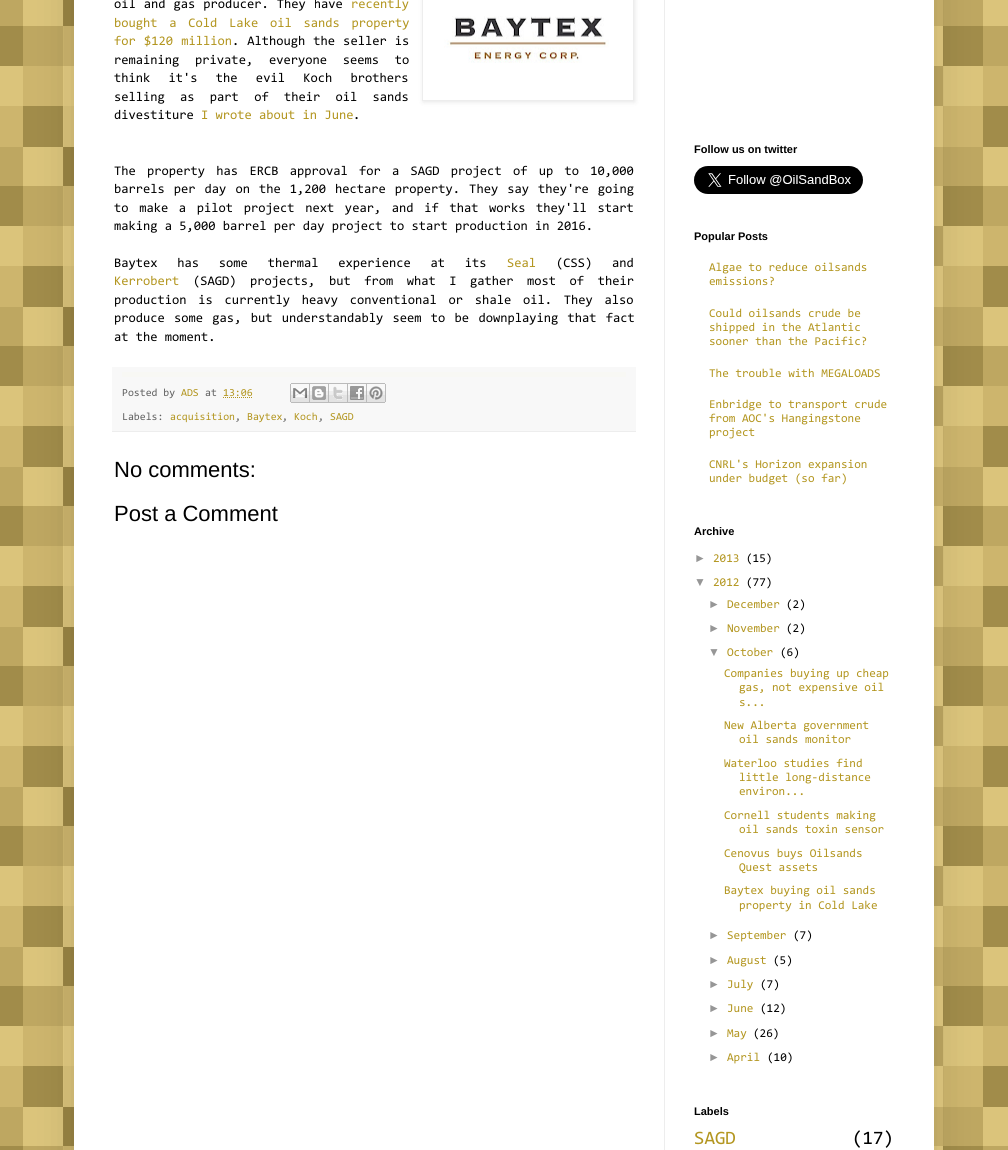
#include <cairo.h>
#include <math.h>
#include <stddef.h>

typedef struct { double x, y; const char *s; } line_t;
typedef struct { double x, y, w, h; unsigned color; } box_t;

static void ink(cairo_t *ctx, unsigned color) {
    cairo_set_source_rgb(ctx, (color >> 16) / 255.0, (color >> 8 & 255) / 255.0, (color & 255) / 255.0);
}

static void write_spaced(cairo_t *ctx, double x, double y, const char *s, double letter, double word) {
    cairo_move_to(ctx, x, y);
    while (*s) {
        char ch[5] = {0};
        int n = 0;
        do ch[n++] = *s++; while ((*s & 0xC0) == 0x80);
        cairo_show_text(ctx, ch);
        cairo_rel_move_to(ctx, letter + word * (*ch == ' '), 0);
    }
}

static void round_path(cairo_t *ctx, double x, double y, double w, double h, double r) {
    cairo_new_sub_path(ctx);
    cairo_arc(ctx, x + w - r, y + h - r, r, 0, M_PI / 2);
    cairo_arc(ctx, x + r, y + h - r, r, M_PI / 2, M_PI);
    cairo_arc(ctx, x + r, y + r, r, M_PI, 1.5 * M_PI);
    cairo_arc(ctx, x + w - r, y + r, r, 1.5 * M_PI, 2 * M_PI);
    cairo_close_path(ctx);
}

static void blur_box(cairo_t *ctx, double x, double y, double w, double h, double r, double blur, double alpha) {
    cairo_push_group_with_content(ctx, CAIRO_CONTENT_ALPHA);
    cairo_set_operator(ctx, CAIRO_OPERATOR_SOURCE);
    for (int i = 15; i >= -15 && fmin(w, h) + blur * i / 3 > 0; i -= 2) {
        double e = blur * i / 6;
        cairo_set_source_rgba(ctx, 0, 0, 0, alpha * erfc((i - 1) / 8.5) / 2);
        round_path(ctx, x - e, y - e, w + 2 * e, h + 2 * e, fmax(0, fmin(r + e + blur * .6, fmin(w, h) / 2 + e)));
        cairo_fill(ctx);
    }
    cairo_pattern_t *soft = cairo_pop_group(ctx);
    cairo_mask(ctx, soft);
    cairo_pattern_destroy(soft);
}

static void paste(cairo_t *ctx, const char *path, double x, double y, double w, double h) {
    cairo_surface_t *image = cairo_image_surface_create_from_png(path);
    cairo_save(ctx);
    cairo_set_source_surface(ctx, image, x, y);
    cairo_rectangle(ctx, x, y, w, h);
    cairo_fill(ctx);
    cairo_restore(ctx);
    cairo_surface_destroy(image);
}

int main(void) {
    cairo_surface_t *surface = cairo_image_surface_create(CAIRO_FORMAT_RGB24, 1008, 1150);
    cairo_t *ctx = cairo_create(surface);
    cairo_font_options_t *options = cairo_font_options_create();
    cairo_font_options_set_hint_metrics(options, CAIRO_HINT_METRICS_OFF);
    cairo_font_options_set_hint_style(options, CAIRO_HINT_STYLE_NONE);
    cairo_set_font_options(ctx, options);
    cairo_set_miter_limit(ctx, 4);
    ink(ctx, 0xDCBE62);
    cairo_paint(ctx);
    paste(ctx, "media/1.png", 0, 0, 1008, 1150);
    ink(ctx, 0x000000);
    blur_box(ctx, 74, -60, 860, 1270, 0, 20, 0.15);
    ink(ctx, 0xFFFFFF);
    cairo_rectangle(ctx, 74, 0, 860, 1150);
    cairo_fill(ctx);
    cairo_select_font_face(ctx, "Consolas", CAIRO_FONT_SLANT_NORMAL, CAIRO_FONT_WEIGHT_NORMAL);
    cairo_set_font_size(ctx, 13.2);
    ink(ctx, 0x000000);
    write_spaced(ctx, 114, 8, "oil and gas producer. They have", 0, 0.75);
    ink(ctx, 0xB39620);
    cairo_move_to(ctx, 351, 8);
    cairo_show_text(ctx, "recently");
    write_spaced(ctx, 114, 27, "bought a Cold Lake oil sands property", 0, 4.5);
    write_spaced(ctx, 114, 45, "for $120 million", 0, 1);
    ink(ctx, 0x000000);
    write_spaced(ctx, 232, 45, ". Although the seller is", 0, 0.75);
    write_spaced(ctx, 114, 64, "remaining private, everyone seems to", 0, 8.5);
    write_spaced(ctx, 114, 82, "think it's the evil Koch brothers", 0, 11);
    write_spaced(ctx, 114, 101, "selling as part of their oil sands", 0, 8);
    cairo_move_to(ctx, 114, 119);
    cairo_show_text(ctx, "divestiture");
    ink(ctx, 0xB39620);
    cairo_move_to(ctx, 201, 119);
    cairo_show_text(ctx, "I wrote about in June");
    ink(ctx, 0x000000);
    cairo_move_to(ctx, 353, 119);
    cairo_show_text(ctx, ".");
    cairo_save(ctx);
    cairo_set_fill_rule(ctx, CAIRO_FILL_RULE_EVEN_ODD);
    cairo_new_path(ctx);
    cairo_move_to(ctx, 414, 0);
    cairo_line_to(ctx, 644, 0);
    cairo_line_to(ctx, 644, 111);
    cairo_line_to(ctx, 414, 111);
    cairo_close_path(ctx);
    cairo_move_to(ctx, 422, -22);
    cairo_line_to(ctx, 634, -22);
    cairo_line_to(ctx, 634, 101);
    cairo_line_to(ctx, 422, 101);
    cairo_close_path(ctx);
    cairo_clip(ctx);
    ink(ctx, 0x000000);
    blur_box(ctx, 423, -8, 212, 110, 0, 2.5, 0.1);
    cairo_restore(ctx);
    cairo_rectangle(ctx, 422.5, -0.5, 211, 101);
    ink(ctx, 0xEDEDED);
    cairo_set_line_width(ctx, 1);
    cairo_stroke(ctx);
    paste(ctx, "media/2.png", 444, 16, 165, 47);
    ink(ctx, 0x000000);
    write_spaced(ctx, 114, 175, "The property has ERCB approval for a SAGD project of up to 10,000", 0, 4);
    write_spaced(ctx, 114, 193, "barrels per day on the 1,200 hectare property. They say they're going", 0, 1.75);
    write_spaced(ctx, 114, 212, "to make a pilot project next year, and if that works they'll start", 0, 3.4);
    cairo_move_to(ctx, 114, 230);
    cairo_show_text(ctx, "making a 5,000 barrel per day project to start production in 2016.");
    write_spaced(ctx, 114, 267, "Baytex has some thermal experience at its", 0, 12.5);
    ink(ctx, 0xB39620);
    cairo_move_to(ctx, 507, 267);
    cairo_show_text(ctx, "Seal");
    ink(ctx, 0x000000);
    write_spaced(ctx, 556, 267, "(CSS) and", 0, 12.5);
    ink(ctx, 0xB39620);
    cairo_move_to(ctx, 114, 285);
    cairo_show_text(ctx, "Kerrobert");
    ink(ctx, 0x000000);
    write_spaced(ctx, 193, 285, "(SAGD) projects, but from what I gather most of their", 0, 6.25);
    write_spaced(ctx, 114, 304, "production is currently heavy conventional or shale oil. They also", 0, 4.5);
    write_spaced(ctx, 114, 322, "produce some gas, but understandably seem to be downplaying that fact", 0, 2);
    cairo_move_to(ctx, 114, 341);
    cairo_show_text(ctx, "at the moment.");
    {
        static const box_t items[] = {
            {112, 367, 524, 64, 0xF8F8F8},
            {112, 431, 524, 1, 0xEDEDED},
            {122, 372, 504, 5, 0xF8F8F4},
        };
        for (size_t i = 0; i < sizeof items / sizeof *items; i++) {
            ink(ctx, items[i].color);
            cairo_rectangle(ctx, items[i].x, items[i].y, items[i].w, items[i].h);
            cairo_fill(ctx);
        }
    }
    cairo_set_font_size(ctx, 10.75);
    ink(ctx, 0x606060);
    cairo_move_to(ctx, 122, 396);
    cairo_show_text(ctx, "Posted by");
    ink(ctx, 0xB39620);
    cairo_move_to(ctx, 181, 396);
    cairo_show_text(ctx, "ADS");
    ink(ctx, 0x606060);
    cairo_move_to(ctx, 205, 396);
    cairo_show_text(ctx, "at");
    ink(ctx, 0xB39620);
    cairo_move_to(ctx, 223, 396);
    cairo_show_text(ctx, "13:06");
    cairo_new_path(ctx);
    cairo_move_to(ctx, 223, 397.5);
    cairo_line_to(ctx, 252.5, 397.5);
    cairo_set_dash(ctx, (double[]){1, 1}, 2, 0);
    cairo_stroke(ctx);
    paste(ctx, "media/3.png", 290, 383, 20, 20);
    paste(ctx, "media/4.png", 310, 383, 19, 20);
    paste(ctx, "media/5.png", 329, 383, 19, 20);
    paste(ctx, "media/6.png", 348, 383, 19, 20);
    paste(ctx, "media/7.png", 367, 383, 19, 20);
    ink(ctx, 0x606060);
    cairo_move_to(ctx, 122, 420);
    cairo_show_text(ctx, "Labels:");
    ink(ctx, 0xB39620);
    cairo_move_to(ctx, 170, 420);
    cairo_show_text(ctx, "acquisition");
    ink(ctx, 0x606060);
    cairo_move_to(ctx, 235, 420);
    cairo_show_text(ctx, ",");
    ink(ctx, 0xB39620);
    cairo_move_to(ctx, 247, 420);
    cairo_show_text(ctx, "Baytex");
    ink(ctx, 0x606060);
    cairo_move_to(ctx, 282, 420);
    cairo_show_text(ctx, ",");
    ink(ctx, 0xB39620);
    cairo_move_to(ctx, 294, 420);
    cairo_show_text(ctx, "Koch");
    ink(ctx, 0x606060);
    cairo_move_to(ctx, 318, 420);
    cairo_show_text(ctx, ",");
    ink(ctx, 0xB39620);
    cairo_move_to(ctx, 330, 420);
    cairo_show_text(ctx, "SAGD");
    cairo_select_font_face(ctx, "Liberation Sans", CAIRO_FONT_SLANT_NORMAL, CAIRO_FONT_WEIGHT_NORMAL);
    cairo_set_font_size(ctx, 22);
    ink(ctx, 0x000000);
    cairo_move_to(ctx, 114, 477);
    cairo_show_text(ctx, "No comments:");
    cairo_move_to(ctx, 114, 521);
    cairo_show_text(ctx, "Post a Comment");
    cairo_select_font_face(ctx, "Liberation Sans", CAIRO_FONT_SLANT_NORMAL, CAIRO_FONT_WEIGHT_BOLD);
    cairo_set_font_size(ctx, 11);
    cairo_move_to(ctx, 694, 153);
    cairo_show_text(ctx, "Follow us on twitter");
    paste(ctx, "media/8.png", 694, 166, 169, 28);
    cairo_move_to(ctx, 694, 240);
    cairo_show_text(ctx, "Popular Posts");
    cairo_select_font_face(ctx, "Consolas", CAIRO_FONT_SLANT_NORMAL, CAIRO_FONT_WEIGHT_NORMAL);
    cairo_set_font_size(ctx, 12);
    ink(ctx, 0xB39620);
    {
        static const line_t items[] = {
            {709, 271, "Algae to reduce oilsands"},
            {709, 285, "emissions?"},
            {709, 317, "Could oilsands crude be"},
            {709, 331, "shipped in the Atlantic"},
            {709, 345, "sooner than the Pacific?"},
            {709, 377, "The trouble with MEGALOADS"},
            {709, 408, "Enbridge to transport crude"},
            {709, 422, "from AOC's Hangingstone"},
            {709, 436, "project"},
            {709, 468, "CNRL's Horizon expansion"},
            {709, 482, "under budget (so far)"},
        };
        for (size_t i = 0; i < sizeof items / sizeof *items; i++) {
            cairo_move_to(ctx, items[i].x, items[i].y);
            cairo_show_text(ctx, items[i].s);
        }
    }
    cairo_select_font_face(ctx, "Liberation Sans", CAIRO_FONT_SLANT_NORMAL, CAIRO_FONT_WEIGHT_BOLD);
    cairo_set_font_size(ctx, 11);
    ink(ctx, 0x000000);
    cairo_move_to(ctx, 694, 535);
    cairo_show_text(ctx, "Archive");
    cairo_select_font_face(ctx, "Liberation Sans", CAIRO_FONT_SLANT_NORMAL, CAIRO_FONT_WEIGHT_NORMAL);
    cairo_set_font_size(ctx, 12);
    ink(ctx, 0x969696);
    cairo_move_to(ctx, 694, 562);
    cairo_show_text(ctx, "►");
    cairo_select_font_face(ctx, "Consolas", CAIRO_FONT_SLANT_NORMAL, CAIRO_FONT_WEIGHT_NORMAL);
    ink(ctx, 0xB39620);
    cairo_move_to(ctx, 713, 562);
    cairo_show_text(ctx, "2013");
    ink(ctx, 0x000000);
    cairo_move_to(ctx, 746, 562);
    cairo_show_text(ctx, "(15)");
    cairo_select_font_face(ctx, "Liberation Sans", CAIRO_FONT_SLANT_NORMAL, CAIRO_FONT_WEIGHT_NORMAL);
    ink(ctx, 0x969696);
    cairo_move_to(ctx, 694, 586);
    cairo_show_text(ctx, "▼");
    cairo_select_font_face(ctx, "Consolas", CAIRO_FONT_SLANT_NORMAL, CAIRO_FONT_WEIGHT_NORMAL);
    ink(ctx, 0xB39620);
    cairo_move_to(ctx, 713, 586);
    cairo_show_text(ctx, "2012");
    ink(ctx, 0x000000);
    cairo_move_to(ctx, 746, 586);
    cairo_show_text(ctx, "(77)");
    cairo_select_font_face(ctx, "Liberation Sans", CAIRO_FONT_SLANT_NORMAL, CAIRO_FONT_WEIGHT_NORMAL);
    ink(ctx, 0x969696);
    cairo_move_to(ctx, 708, 608);
    cairo_show_text(ctx, "►");
    cairo_select_font_face(ctx, "Consolas", CAIRO_FONT_SLANT_NORMAL, CAIRO_FONT_WEIGHT_NORMAL);
    ink(ctx, 0xB39620);
    cairo_move_to(ctx, 727, 608);
    cairo_show_text(ctx, "December");
    ink(ctx, 0x000000);
    cairo_move_to(ctx, 786, 608);
    cairo_show_text(ctx, "(2)");
    cairo_select_font_face(ctx, "Liberation Sans", CAIRO_FONT_SLANT_NORMAL, CAIRO_FONT_WEIGHT_NORMAL);
    ink(ctx, 0x969696);
    cairo_move_to(ctx, 708, 632);
    cairo_show_text(ctx, "►");
    cairo_select_font_face(ctx, "Consolas", CAIRO_FONT_SLANT_NORMAL, CAIRO_FONT_WEIGHT_NORMAL);
    ink(ctx, 0xB39620);
    cairo_move_to(ctx, 727, 632);
    cairo_show_text(ctx, "November");
    ink(ctx, 0x000000);
    cairo_move_to(ctx, 786, 632);
    cairo_show_text(ctx, "(2)");
    cairo_select_font_face(ctx, "Liberation Sans", CAIRO_FONT_SLANT_NORMAL, CAIRO_FONT_WEIGHT_NORMAL);
    ink(ctx, 0x969696);
    cairo_move_to(ctx, 708, 656);
    cairo_show_text(ctx, "▼");
    cairo_select_font_face(ctx, "Consolas", CAIRO_FONT_SLANT_NORMAL, CAIRO_FONT_WEIGHT_NORMAL);
    ink(ctx, 0xB39620);
    cairo_move_to(ctx, 727, 656);
    cairo_show_text(ctx, "October");
    ink(ctx, 0x000000);
    cairo_move_to(ctx, 780, 656);
    cairo_show_text(ctx, "(6)");
    ink(ctx, 0xB39620);
    {
        static const line_t items[] = {
            {724, 677, "Companies buying up cheap"},
            {739, 691, "gas, not expensive oil"},
            {739, 706, "s..."},
            {724, 729, "New Alberta government"},
            {739, 743, "oil sands monitor"},
            {724, 767, "Waterloo studies find"},
            {739, 781, "little long-distance"},
            {739, 795, "environ..."},
            {724, 819, "Cornell students making"},
            {739, 833, "oil sands toxin sensor"},
            {724, 857, "Cenovus buys Oilsands"},
            {739, 871, "Quest assets"},
            {724, 894, "Baytex buying oil sands"},
            {739, 909, "property in Cold Lake"},
        };
        for (size_t i = 0; i < sizeof items / sizeof *items; i++) {
            cairo_move_to(ctx, items[i].x, items[i].y);
            cairo_show_text(ctx, items[i].s);
        }
    }
    cairo_select_font_face(ctx, "Liberation Sans", CAIRO_FONT_SLANT_NORMAL, CAIRO_FONT_WEIGHT_NORMAL);
    ink(ctx, 0x969696);
    cairo_move_to(ctx, 708, 939);
    cairo_show_text(ctx, "►");
    cairo_select_font_face(ctx, "Consolas", CAIRO_FONT_SLANT_NORMAL, CAIRO_FONT_WEIGHT_NORMAL);
    ink(ctx, 0xB39620);
    cairo_move_to(ctx, 727, 939);
    cairo_show_text(ctx, "September");
    ink(ctx, 0x000000);
    cairo_move_to(ctx, 793, 939);
    cairo_show_text(ctx, "(7)");
    cairo_select_font_face(ctx, "Liberation Sans", CAIRO_FONT_SLANT_NORMAL, CAIRO_FONT_WEIGHT_NORMAL);
    ink(ctx, 0x969696);
    cairo_move_to(ctx, 708, 964);
    cairo_show_text(ctx, "►");
    cairo_select_font_face(ctx, "Consolas", CAIRO_FONT_SLANT_NORMAL, CAIRO_FONT_WEIGHT_NORMAL);
    ink(ctx, 0xB39620);
    cairo_move_to(ctx, 727, 964);
    cairo_show_text(ctx, "August");
    ink(ctx, 0x000000);
    cairo_move_to(ctx, 773, 964);
    cairo_show_text(ctx, "(5)");
    cairo_select_font_face(ctx, "Liberation Sans", CAIRO_FONT_SLANT_NORMAL, CAIRO_FONT_WEIGHT_NORMAL);
    ink(ctx, 0x969696);
    cairo_move_to(ctx, 708, 988);
    cairo_show_text(ctx, "►");
    cairo_select_font_face(ctx, "Consolas", CAIRO_FONT_SLANT_NORMAL, CAIRO_FONT_WEIGHT_NORMAL);
    ink(ctx, 0xB39620);
    cairo_move_to(ctx, 727, 988);
    cairo_show_text(ctx, "July");
    ink(ctx, 0x000000);
    cairo_move_to(ctx, 760, 988);
    cairo_show_text(ctx, "(7)");
    cairo_select_font_face(ctx, "Liberation Sans", CAIRO_FONT_SLANT_NORMAL, CAIRO_FONT_WEIGHT_NORMAL);
    ink(ctx, 0x969696);
    cairo_move_to(ctx, 708, 1012);
    cairo_show_text(ctx, "►");
    cairo_select_font_face(ctx, "Consolas", CAIRO_FONT_SLANT_NORMAL, CAIRO_FONT_WEIGHT_NORMAL);
    ink(ctx, 0xB39620);
    cairo_move_to(ctx, 727, 1012);
    cairo_show_text(ctx, "June");
    ink(ctx, 0x000000);
    cairo_move_to(ctx, 760, 1012);
    cairo_show_text(ctx, "(12)");
    cairo_select_font_face(ctx, "Liberation Sans", CAIRO_FONT_SLANT_NORMAL, CAIRO_FONT_WEIGHT_NORMAL);
    ink(ctx, 0x969696);
    cairo_move_to(ctx, 708, 1037);
    cairo_show_text(ctx, "►");
    cairo_select_font_face(ctx, "Consolas", CAIRO_FONT_SLANT_NORMAL, CAIRO_FONT_WEIGHT_NORMAL);
    ink(ctx, 0xB39620);
    cairo_move_to(ctx, 727, 1037);
    cairo_show_text(ctx, "May");
    ink(ctx, 0x000000);
    cairo_move_to(ctx, 753, 1037);
    cairo_show_text(ctx, "(26)");
    cairo_select_font_face(ctx, "Liberation Sans", CAIRO_FONT_SLANT_NORMAL, CAIRO_FONT_WEIGHT_NORMAL);
    ink(ctx, 0x969696);
    cairo_move_to(ctx, 708, 1061);
    cairo_show_text(ctx, "►");
    cairo_select_font_face(ctx, "Consolas", CAIRO_FONT_SLANT_NORMAL, CAIRO_FONT_WEIGHT_NORMAL);
    ink(ctx, 0xB39620);
    cairo_move_to(ctx, 727, 1061);
    cairo_show_text(ctx, "April");
    ink(ctx, 0x000000);
    cairo_move_to(ctx, 767, 1061);
    cairo_show_text(ctx, "(10)");
    cairo_select_font_face(ctx, "Liberation Sans", CAIRO_FONT_SLANT_NORMAL, CAIRO_FONT_WEIGHT_BOLD);
    cairo_set_font_size(ctx, 11);
    cairo_move_to(ctx, 694, 1115);
    cairo_show_text(ctx, "Labels");
    cairo_select_font_face(ctx, "Consolas", CAIRO_FONT_SLANT_NORMAL, CAIRO_FONT_WEIGHT_NORMAL);
    cairo_set_font_size(ctx, 19);
    ink(ctx, 0xB39620);
    cairo_move_to(ctx, 694, 1144);
    cairo_show_text(ctx, "SAGD");
    ink(ctx, 0x000000);
    cairo_move_to(ctx, 852, 1144);
    cairo_show_text(ctx, "(17)");
    ink(ctx, 0xEDEDED);
    cairo_rectangle(ctx, 664, 0, 1, 1150);
    cairo_fill(ctx);
    cairo_surface_write_to_png(surface, "image.png");
    cairo_font_options_destroy(options);
    cairo_destroy(ctx);
    cairo_surface_destroy(surface);
    return 0;
}
